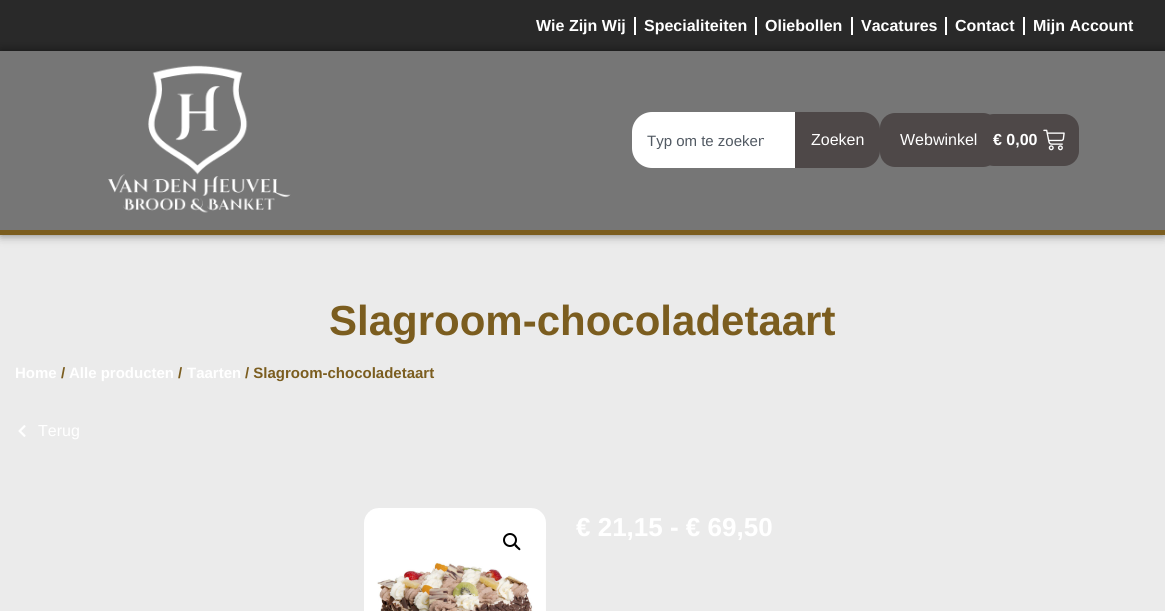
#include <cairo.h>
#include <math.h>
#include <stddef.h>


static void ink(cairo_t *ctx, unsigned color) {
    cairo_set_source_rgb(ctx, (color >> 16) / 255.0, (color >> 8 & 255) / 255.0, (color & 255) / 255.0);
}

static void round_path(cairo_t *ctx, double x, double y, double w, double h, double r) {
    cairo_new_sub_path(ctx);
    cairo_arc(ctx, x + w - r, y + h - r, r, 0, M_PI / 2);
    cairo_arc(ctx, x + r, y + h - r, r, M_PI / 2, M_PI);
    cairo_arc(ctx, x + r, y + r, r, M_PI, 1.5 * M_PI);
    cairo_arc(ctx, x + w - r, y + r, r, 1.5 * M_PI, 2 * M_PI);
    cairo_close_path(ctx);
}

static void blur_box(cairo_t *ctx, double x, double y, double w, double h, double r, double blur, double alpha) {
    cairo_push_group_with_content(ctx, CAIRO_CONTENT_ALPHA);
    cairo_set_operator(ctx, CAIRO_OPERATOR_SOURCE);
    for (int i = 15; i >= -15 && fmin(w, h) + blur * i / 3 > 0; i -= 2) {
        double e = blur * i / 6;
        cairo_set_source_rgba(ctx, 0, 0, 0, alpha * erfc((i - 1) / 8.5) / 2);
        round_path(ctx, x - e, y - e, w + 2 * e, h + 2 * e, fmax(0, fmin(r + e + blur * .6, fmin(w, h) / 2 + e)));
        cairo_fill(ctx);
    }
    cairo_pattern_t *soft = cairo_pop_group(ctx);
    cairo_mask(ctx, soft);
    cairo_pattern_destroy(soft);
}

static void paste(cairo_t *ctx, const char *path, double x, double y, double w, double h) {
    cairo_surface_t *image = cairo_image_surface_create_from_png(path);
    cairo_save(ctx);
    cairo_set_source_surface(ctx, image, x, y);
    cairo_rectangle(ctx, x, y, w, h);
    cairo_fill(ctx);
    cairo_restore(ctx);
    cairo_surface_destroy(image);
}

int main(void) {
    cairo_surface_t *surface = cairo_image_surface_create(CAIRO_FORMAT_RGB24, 1165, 611);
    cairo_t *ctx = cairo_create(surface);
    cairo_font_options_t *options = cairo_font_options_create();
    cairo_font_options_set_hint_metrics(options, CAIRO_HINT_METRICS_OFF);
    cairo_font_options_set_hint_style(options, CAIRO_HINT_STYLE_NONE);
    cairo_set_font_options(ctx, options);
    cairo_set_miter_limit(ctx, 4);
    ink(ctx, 0xEBEBEB);
    cairo_paint(ctx);
    ink(ctx, 0x292929);
    cairo_rectangle(ctx, 0, 0, 1165, 51);
    cairo_fill(ctx);
    cairo_select_font_face(ctx, "Liberation Sans", CAIRO_FONT_SLANT_NORMAL, CAIRO_FONT_WEIGHT_BOLD);
    cairo_set_font_size(ctx, 16);
    ink(ctx, 0xFFFFFF);
    cairo_move_to(ctx, 536, 31);
    cairo_show_text(ctx, "Wie Zijn Wij");
    cairo_rectangle(ctx, 634, 17, 2, 18);
    cairo_fill(ctx);
    cairo_move_to(ctx, 644, 31);
    cairo_show_text(ctx, "Specialiteiten");
    cairo_rectangle(ctx, 755, 17, 2, 18);
    cairo_fill(ctx);
    cairo_move_to(ctx, 765, 31);
    cairo_show_text(ctx, "Oliebollen");
    cairo_rectangle(ctx, 851, 17, 2, 18);
    cairo_fill(ctx);
    cairo_move_to(ctx, 861, 31);
    cairo_show_text(ctx, "Vacatures");
    cairo_rectangle(ctx, 945, 17, 2, 18);
    cairo_fill(ctx);
    cairo_move_to(ctx, 955, 31);
    cairo_show_text(ctx, "Contact");
    cairo_rectangle(ctx, 1023, 17, 2, 18);
    cairo_fill(ctx);
    cairo_move_to(ctx, 1033, 31);
    cairo_show_text(ctx, "Mijn Account");
    ink(ctx, 0x000000);
    blur_box(ctx, 0, 51, 1165, 184, 1, 5, 0.5);
    ink(ctx, 0x767676);
    cairo_rectangle(ctx, 0, 51, 1165, 179);
    cairo_fill(ctx);
    ink(ctx, 0x7B5D1F);
    cairo_rectangle(ctx, 0, 230, 1165, 5);
    cairo_fill(ctx);
    paste(ctx, "media/1.png", 108, 65, 183, 148);
    ink(ctx, 0xFFFFFF);
    cairo_new_path(ctx);
    cairo_move_to(ctx, 652, 112);
    cairo_line_to(ctx, 795, 112);
    cairo_line_to(ctx, 795, 168);
    cairo_line_to(ctx, 652, 168);
    cairo_curve_to(ctx, 641, 168, 632, 159, 632, 148);
    cairo_line_to(ctx, 632, 132);
    cairo_curve_to(ctx, 632, 121, 641, 112, 652, 112);
    cairo_close_path(ctx);
    cairo_fill(ctx);
    cairo_save(ctx);
    cairo_rectangle(ctx, 647, 132, 117, 17);
    cairo_clip(ctx);
    cairo_select_font_face(ctx, "Liberation Sans", CAIRO_FONT_SLANT_NORMAL, CAIRO_FONT_WEIGHT_NORMAL);
    cairo_set_font_size(ctx, 15);
    ink(ctx, 0x515962);
    cairo_move_to(ctx, 647, 146);
    cairo_show_text(ctx, "Typ om te zoeken");
    cairo_restore(ctx);
    ink(ctx, 0x4E4848);
    cairo_new_path(ctx);
    cairo_move_to(ctx, 795, 112);
    cairo_line_to(ctx, 862, 112);
    cairo_curve_to(ctx, 872, 112, 880, 120, 880, 130);
    cairo_line_to(ctx, 880, 150);
    cairo_curve_to(ctx, 880, 160, 872, 168, 862, 168);
    cairo_line_to(ctx, 795, 168);
    cairo_close_path(ctx);
    cairo_fill(ctx);
    cairo_select_font_face(ctx, "Liberation Sans", CAIRO_FONT_SLANT_NORMAL, CAIRO_FONT_WEIGHT_NORMAL);
    ink(ctx, 0xFFFFFF);
    cairo_move_to(ctx, 811, 145);
    cairo_show_text(ctx, "Zoeken");
    ink(ctx, 0x4E4848);
    round_path(ctx, 880, 113, 118, 54, 15);
    cairo_fill(ctx);
    ink(ctx, 0xFFFFFF);
    cairo_move_to(ctx, 900, 145);
    cairo_show_text(ctx, "Webwinkel");
    ink(ctx, 0x4E4848);
    round_path(ctx, 979, 114, 100, 52, 15);
    cairo_fill(ctx);
    cairo_select_font_face(ctx, "Liberation Sans", CAIRO_FONT_SLANT_NORMAL, CAIRO_FONT_WEIGHT_BOLD);
    ink(ctx, 0xFFFFFF);
    cairo_move_to(ctx, 993, 145);
    cairo_show_text(ctx, "€ 0,00");
    paste(ctx, "media/2.png", 1043, 129, 22, 22);
    cairo_set_font_size(ctx, 42);
    ink(ctx, 0x7B5D1F);
    cairo_move_to(ctx, 329, 335);
    cairo_show_text(ctx, "Slagroom-chocoladetaart");
    cairo_set_font_size(ctx, 15);
    ink(ctx, 0xFFFFFF);
    cairo_move_to(ctx, 15, 378);
    cairo_show_text(ctx, "Home");
    ink(ctx, 0x7B5D1F);
    cairo_move_to(ctx, 61, 378);
    cairo_show_text(ctx, "/");
    ink(ctx, 0xFFFFFF);
    cairo_move_to(ctx, 69, 378);
    cairo_show_text(ctx, "Alle producten");
    ink(ctx, 0x7B5D1F);
    cairo_move_to(ctx, 178, 378);
    cairo_show_text(ctx, "/");
    ink(ctx, 0xFFFFFF);
    cairo_move_to(ctx, 187, 378);
    cairo_show_text(ctx, "Taarten");
    ink(ctx, 0x7B5D1F);
    cairo_move_to(ctx, 245, 378);
    cairo_show_text(ctx, "/ Slagroom-chocoladetaart");
    paste(ctx, "media/3.png", 18, 425, 8, 12);
    cairo_select_font_face(ctx, "Liberation Sans", CAIRO_FONT_SLANT_NORMAL, CAIRO_FONT_WEIGHT_NORMAL);
    cairo_set_font_size(ctx, 16);
    ink(ctx, 0xFFFFFF);
    cairo_move_to(ctx, 38, 436);
    cairo_show_text(ctx, "Terug");
    paste(ctx, "media/4.png", 364, 508, 182, 103);
    cairo_arc(ctx, 510, 540, 6, 0, 2 * M_PI);
    ink(ctx, 0x000000);
    cairo_stroke(ctx);
    cairo_new_path(ctx);
    cairo_move_to(ctx, 514.5, 544.5);
    cairo_curve_to(ctx, 516, 543, 517.5, 546, 518, 546.5);
    cairo_curve_to(ctx, 518.5, 547, 521.5, 549, 520, 550);
    cairo_curve_to(ctx, 519, 551, 517.5, 548.5, 516.5, 548);
    cairo_curve_to(ctx, 516, 547.5, 513.5, 545.5, 514.5, 544.5);
    cairo_close_path(ctx);
    cairo_fill(ctx);
    cairo_select_font_face(ctx, "Liberation Sans", CAIRO_FONT_SLANT_NORMAL, CAIRO_FONT_WEIGHT_BOLD);
    cairo_set_font_size(ctx, 26);
    ink(ctx, 0xFFFFFF);
    cairo_move_to(ctx, 576, 536);
    cairo_show_text(ctx, "€ 21,15 - € 69,50");
    cairo_surface_write_to_png(surface, "image.png");
    cairo_font_options_destroy(options);
    cairo_destroy(ctx);
    cairo_surface_destroy(surface);
    return 0;
}
